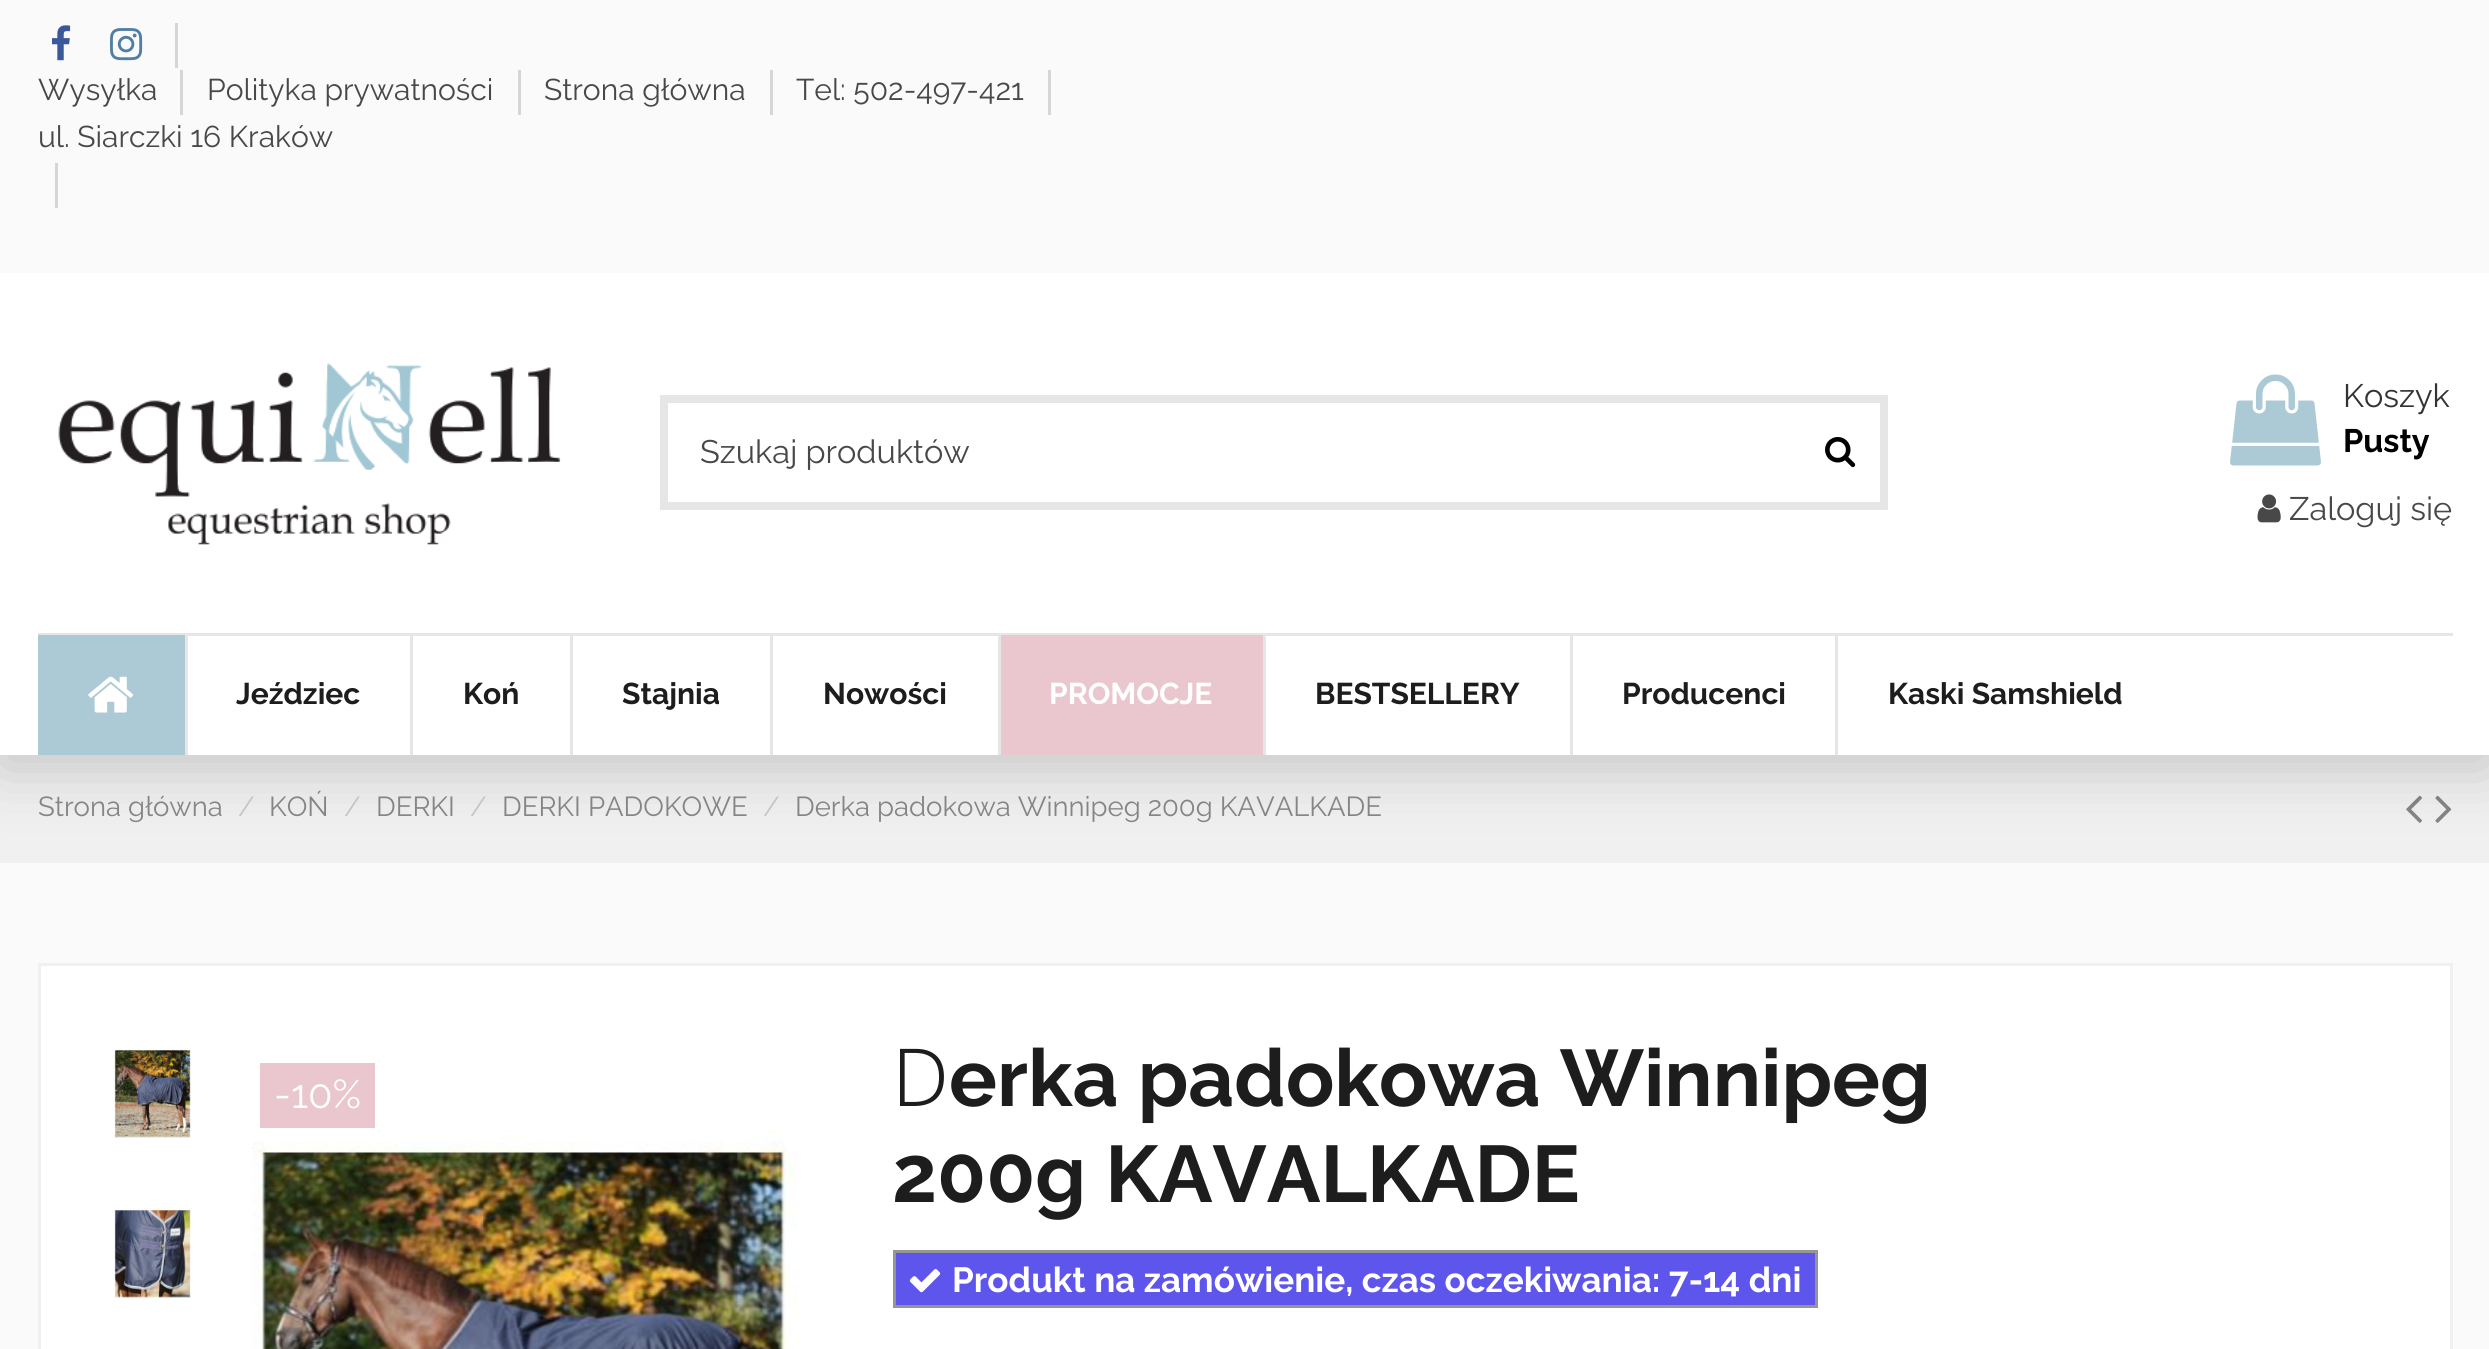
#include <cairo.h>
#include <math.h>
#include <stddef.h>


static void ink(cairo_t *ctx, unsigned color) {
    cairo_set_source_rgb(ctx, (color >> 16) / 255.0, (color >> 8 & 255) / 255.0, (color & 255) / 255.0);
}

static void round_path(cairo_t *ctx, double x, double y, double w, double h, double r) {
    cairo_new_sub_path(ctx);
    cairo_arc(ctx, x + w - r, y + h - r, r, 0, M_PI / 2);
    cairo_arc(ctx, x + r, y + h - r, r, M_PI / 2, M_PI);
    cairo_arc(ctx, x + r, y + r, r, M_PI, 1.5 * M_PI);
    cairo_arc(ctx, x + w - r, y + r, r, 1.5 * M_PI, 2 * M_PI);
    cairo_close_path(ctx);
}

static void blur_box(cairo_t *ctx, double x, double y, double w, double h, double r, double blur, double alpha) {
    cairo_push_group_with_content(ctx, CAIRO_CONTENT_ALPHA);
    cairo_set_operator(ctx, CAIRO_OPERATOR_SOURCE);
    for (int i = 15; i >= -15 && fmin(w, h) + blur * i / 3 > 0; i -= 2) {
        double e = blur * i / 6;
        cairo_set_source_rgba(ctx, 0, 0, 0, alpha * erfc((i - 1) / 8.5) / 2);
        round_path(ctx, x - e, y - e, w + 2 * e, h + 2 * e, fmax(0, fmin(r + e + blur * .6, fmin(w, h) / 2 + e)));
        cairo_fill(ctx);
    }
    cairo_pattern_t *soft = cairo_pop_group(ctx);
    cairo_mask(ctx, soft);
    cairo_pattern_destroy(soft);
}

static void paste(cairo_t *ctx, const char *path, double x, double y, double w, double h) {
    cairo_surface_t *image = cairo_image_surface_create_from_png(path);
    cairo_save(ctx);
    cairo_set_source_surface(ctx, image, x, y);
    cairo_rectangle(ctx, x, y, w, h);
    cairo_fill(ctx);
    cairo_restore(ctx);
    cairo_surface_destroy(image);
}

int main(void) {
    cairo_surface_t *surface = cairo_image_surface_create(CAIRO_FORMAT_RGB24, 2489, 1349);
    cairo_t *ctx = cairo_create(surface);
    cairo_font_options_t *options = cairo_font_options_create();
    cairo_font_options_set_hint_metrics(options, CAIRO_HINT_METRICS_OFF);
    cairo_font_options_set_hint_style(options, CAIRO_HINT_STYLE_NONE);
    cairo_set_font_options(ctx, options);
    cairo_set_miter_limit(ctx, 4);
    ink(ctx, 0xFAFAFA);
    cairo_paint(ctx);
    ink(ctx, 0xF0F0F0);
    cairo_rectangle(ctx, 0, 755, 2489, 108);
    cairo_fill(ctx);
    paste(ctx, "media/8.png", 2406, 795, 16, 28);
    paste(ctx, "media/9.png", 2435, 795, 17, 28);
    ink(ctx, 0x000000);
    blur_box(ctx, 0, 13, 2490, 755, 0, 31, 0.18);
    ink(ctx, 0xFFFFFF);
    cairo_rectangle(ctx, 0, 273, 2489, 482);
    cairo_fill(ctx);
    ink(ctx, 0xFAFAFA);
    cairo_rectangle(ctx, 0, 0, 2489, 273);
    cairo_fill(ctx);
    paste(ctx, "media/1.png", 52, 25, 19, 36);
    paste(ctx, "media/2.png", 110, 28, 33, 33);
    ink(ctx, 0xD6D6D6);
    cairo_rectangle(ctx, 175, 23, 3, 45);
    cairo_fill(ctx);
    cairo_select_font_face(ctx, "Raleway", CAIRO_FONT_SLANT_NORMAL, CAIRO_FONT_WEIGHT_NORMAL);
    cairo_set_font_size(ctx, 30);
    ink(ctx, 0x484848);
    cairo_move_to(ctx, 38, 100);
    cairo_show_text(ctx, "Wysyłka");
    ink(ctx, 0xD6D6D6);
    cairo_rectangle(ctx, 180, 70, 3, 45);
    cairo_fill(ctx);
    ink(ctx, 0x484848);
    cairo_move_to(ctx, 207, 100);
    cairo_show_text(ctx, "Polityka prywatności");
    ink(ctx, 0xD6D6D6);
    cairo_rectangle(ctx, 518, 70, 3, 45);
    cairo_fill(ctx);
    ink(ctx, 0x484848);
    cairo_move_to(ctx, 544, 100);
    cairo_show_text(ctx, "Strona główna");
    ink(ctx, 0xD6D6D6);
    cairo_rectangle(ctx, 770, 70, 3, 45);
    cairo_fill(ctx);
    ink(ctx, 0x484848);
    cairo_move_to(ctx, 796, 100);
    cairo_show_text(ctx, "Tel: 502-497-421");
    ink(ctx, 0xD6D6D6);
    cairo_rectangle(ctx, 1048, 70, 3, 45);
    cairo_fill(ctx);
    ink(ctx, 0x484848);
    cairo_move_to(ctx, 38, 147);
    cairo_show_text(ctx, "ul. Siarczki 16 Kraków");
    ink(ctx, 0xD6D6D6);
    cairo_rectangle(ctx, 55, 163, 3, 45);
    cairo_fill(ctx);
    paste(ctx, "media/3.png", 58, 363, 503, 182);
    cairo_rectangle(ctx, 664, 399, 1220, 107);
    ink(ctx, 0xE6E6E6);
    cairo_set_line_width(ctx, 8);
    cairo_stroke(ctx);
    cairo_set_font_size(ctx, 32.5);
    ink(ctx, 0x484848);
    cairo_move_to(ctx, 700, 463);
    cairo_show_text(ctx, "Szukaj produktów");
    paste(ctx, "media/4.png", 1825, 437, 31, 31);
    paste(ctx, "media/5.png", 2230, 374, 91, 92);
    ink(ctx, 0x333333);
    cairo_move_to(ctx, 2343, 407);
    cairo_show_text(ctx, "Koszyk");
    cairo_select_font_face(ctx, "Raleway", CAIRO_FONT_SLANT_NORMAL, CAIRO_FONT_WEIGHT_BOLD);
    ink(ctx, 0x000000);
    cairo_move_to(ctx, 2343, 452);
    cairo_show_text(ctx, "Pusty");
    paste(ctx, "media/6.png", 2257, 494, 24, 29);
    cairo_select_font_face(ctx, "Raleway", CAIRO_FONT_SLANT_NORMAL, CAIRO_FONT_WEIGHT_NORMAL);
    ink(ctx, 0x484848);
    cairo_move_to(ctx, 2289, 520);
    cairo_show_text(ctx, "Zaloguj się");
    ink(ctx, 0xE6E6E6);
    cairo_rectangle(ctx, 38, 633, 2415, 3);
    cairo_fill(ctx);
    ink(ctx, 0xACCAD5);
    cairo_rectangle(ctx, 38, 635, 147, 120);
    cairo_fill(ctx);
    paste(ctx, "media/7.png", 88, 676, 46, 37);
    ink(ctx, 0xE6E6E6);
    cairo_rectangle(ctx, 185, 635, 3, 120);
    cairo_fill(ctx);
    cairo_select_font_face(ctx, "Raleway", CAIRO_FONT_SLANT_NORMAL, CAIRO_FONT_WEIGHT_BOLD);
    cairo_set_font_size(ctx, 30);
    ink(ctx, 0x1D1D1D);
    cairo_move_to(ctx, 236, 704);
    cairo_show_text(ctx, "Jeździec");
    ink(ctx, 0xE6E6E6);
    cairo_rectangle(ctx, 410, 635, 3, 120);
    cairo_fill(ctx);
    ink(ctx, 0x1D1D1D);
    cairo_move_to(ctx, 463, 704);
    cairo_show_text(ctx, "Koń");
    ink(ctx, 0xE6E6E6);
    cairo_rectangle(ctx, 570, 635, 3, 120);
    cairo_fill(ctx);
    ink(ctx, 0x1D1D1D);
    cairo_move_to(ctx, 622, 704);
    cairo_show_text(ctx, "Stajnia");
    ink(ctx, 0xE6E6E6);
    cairo_rectangle(ctx, 770, 635, 3, 120);
    cairo_fill(ctx);
    ink(ctx, 0x1D1D1D);
    cairo_move_to(ctx, 823, 704);
    cairo_show_text(ctx, "Nowości");
    ink(ctx, 0xEAC7CE);
    cairo_rectangle(ctx, 1001, 635, 262, 120);
    cairo_fill(ctx);
    ink(ctx, 0xE6E6E6);
    cairo_rectangle(ctx, 998, 635, 3, 120);
    cairo_fill(ctx);
    ink(ctx, 0xFFFFFF);
    cairo_move_to(ctx, 1049, 704);
    cairo_show_text(ctx, "PROMOCJE");
    ink(ctx, 0xE6E6E6);
    cairo_rectangle(ctx, 1263, 635, 3, 120);
    cairo_fill(ctx);
    ink(ctx, 0x1D1D1D);
    cairo_move_to(ctx, 1315, 704);
    cairo_show_text(ctx, "BESTSELLERY");
    ink(ctx, 0xE6E6E6);
    cairo_rectangle(ctx, 1570, 635, 3, 120);
    cairo_fill(ctx);
    ink(ctx, 0x1D1D1D);
    cairo_move_to(ctx, 1622, 704);
    cairo_show_text(ctx, "Producenci");
    ink(ctx, 0xE6E6E6);
    cairo_rectangle(ctx, 1835, 635, 3, 120);
    cairo_fill(ctx);
    ink(ctx, 0x1D1D1D);
    cairo_move_to(ctx, 1888, 704);
    cairo_show_text(ctx, "Kaski Samshield");
    cairo_select_font_face(ctx, "Raleway", CAIRO_FONT_SLANT_NORMAL, CAIRO_FONT_WEIGHT_NORMAL);
    cairo_set_font_size(ctx, 27.5);
    ink(ctx, 0x858585);
    cairo_move_to(ctx, 38, 816);
    cairo_show_text(ctx, "Strona główna");
    ink(ctx, 0xC5C5C5);
    cairo_move_to(ctx, 238, 816);
    cairo_show_text(ctx, "/");
    ink(ctx, 0x858585);
    cairo_move_to(ctx, 269, 816);
    cairo_show_text(ctx, "KOŃ");
    ink(ctx, 0xC5C5C5);
    cairo_move_to(ctx, 344, 816);
    cairo_show_text(ctx, "/");
    ink(ctx, 0x858585);
    cairo_move_to(ctx, 376, 816);
    cairo_show_text(ctx, "DERKI");
    ink(ctx, 0xC5C5C5);
    cairo_move_to(ctx, 470, 816);
    cairo_show_text(ctx, "/");
    ink(ctx, 0x858585);
    cairo_move_to(ctx, 502, 816);
    cairo_show_text(ctx, "DERKI PADOKOWE");
    ink(ctx, 0xC5C5C5);
    cairo_move_to(ctx, 763, 816);
    cairo_show_text(ctx, "/");
    ink(ctx, 0x858585);
    cairo_move_to(ctx, 795, 816);
    cairo_show_text(ctx, "Derka padokowa Winnipeg 200g KAVALKADE");
    ink(ctx, 0xFFFFFF);
    cairo_rectangle(ctx, 39.5, 964.5, 2412, 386);
    cairo_fill_preserve(ctx);
    ink(ctx, 0xF0F0F0);
    cairo_set_line_width(ctx, 3);
    cairo_stroke(ctx);
    paste(ctx, "media/10.png", 114, 1049, 77, 89);
    paste(ctx, "media/11.png", 114, 1208, 77, 90);
    ink(ctx, 0xEAC7CE);
    cairo_rectangle(ctx, 260, 1063, 115, 65);
    cairo_fill(ctx);
    cairo_set_font_size(ctx, 40);
    ink(ctx, 0xFFFFFF);
    cairo_move_to(ctx, 274, 1108);
    cairo_show_text(ctx, "-10%");
    paste(ctx, "media/12.png", 252, 1130, 546, 219);
    cairo_select_font_face(ctx, "Noto Sans Light", CAIRO_FONT_SLANT_NORMAL, CAIRO_FONT_WEIGHT_NORMAL);
    cairo_set_font_size(ctx, 80);
    ink(ctx, 0x1D1D1D);
    cairo_move_to(ctx, 892, 1106);
    cairo_show_text(ctx, "D");
    cairo_select_font_face(ctx, "Raleway", CAIRO_FONT_SLANT_NORMAL, CAIRO_FONT_WEIGHT_BOLD);
    cairo_move_to(ctx, 949, 1106);
    cairo_show_text(ctx, "erka padokowa Winnipeg");
    cairo_move_to(ctx, 892, 1202);
    cairo_show_text(ctx, "200g KAVALKADE");
    ink(ctx, 0x5E56EC);
    cairo_rectangle(ctx, 894.5, 1251.5, 922, 55);
    cairo_fill_preserve(ctx);
    ink(ctx, 0x959595);
    cairo_stroke(ctx);
    paste(ctx, "media/13.png", 909, 1269, 32, 24);
    cairo_set_font_size(ctx, 35);
    ink(ctx, 0xFFFFFF);
    cairo_move_to(ctx, 952, 1292);
    cairo_show_text(ctx, "Produkt na zamówienie, czas oczekiwania: 7-14 dni");
    cairo_surface_write_to_png(surface, "image.png");
    cairo_font_options_destroy(options);
    cairo_destroy(ctx);
    cairo_surface_destroy(surface);
    return 0;
}
